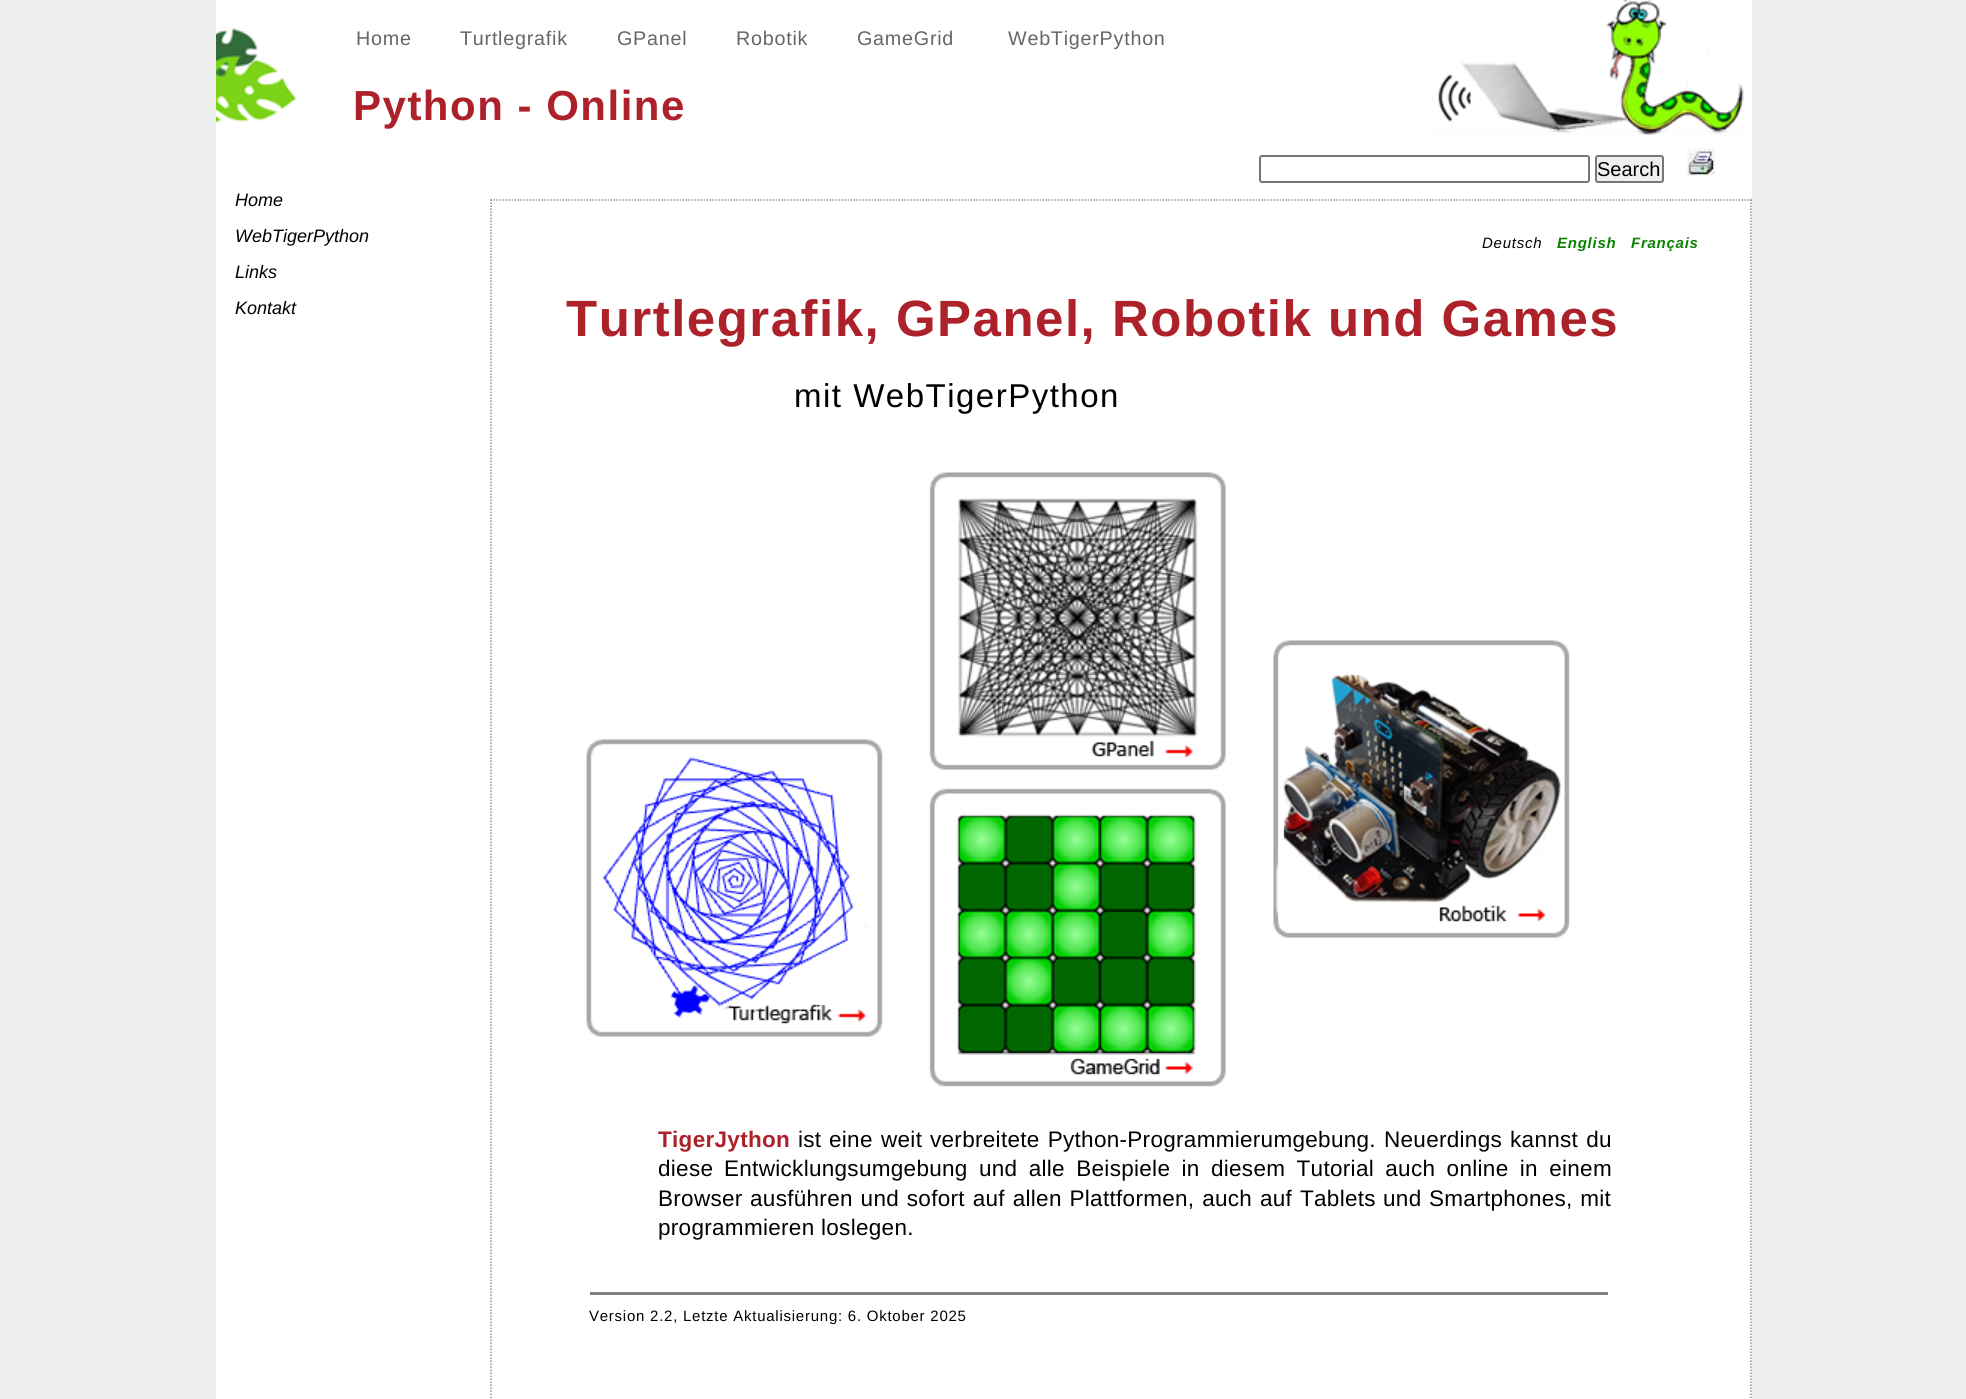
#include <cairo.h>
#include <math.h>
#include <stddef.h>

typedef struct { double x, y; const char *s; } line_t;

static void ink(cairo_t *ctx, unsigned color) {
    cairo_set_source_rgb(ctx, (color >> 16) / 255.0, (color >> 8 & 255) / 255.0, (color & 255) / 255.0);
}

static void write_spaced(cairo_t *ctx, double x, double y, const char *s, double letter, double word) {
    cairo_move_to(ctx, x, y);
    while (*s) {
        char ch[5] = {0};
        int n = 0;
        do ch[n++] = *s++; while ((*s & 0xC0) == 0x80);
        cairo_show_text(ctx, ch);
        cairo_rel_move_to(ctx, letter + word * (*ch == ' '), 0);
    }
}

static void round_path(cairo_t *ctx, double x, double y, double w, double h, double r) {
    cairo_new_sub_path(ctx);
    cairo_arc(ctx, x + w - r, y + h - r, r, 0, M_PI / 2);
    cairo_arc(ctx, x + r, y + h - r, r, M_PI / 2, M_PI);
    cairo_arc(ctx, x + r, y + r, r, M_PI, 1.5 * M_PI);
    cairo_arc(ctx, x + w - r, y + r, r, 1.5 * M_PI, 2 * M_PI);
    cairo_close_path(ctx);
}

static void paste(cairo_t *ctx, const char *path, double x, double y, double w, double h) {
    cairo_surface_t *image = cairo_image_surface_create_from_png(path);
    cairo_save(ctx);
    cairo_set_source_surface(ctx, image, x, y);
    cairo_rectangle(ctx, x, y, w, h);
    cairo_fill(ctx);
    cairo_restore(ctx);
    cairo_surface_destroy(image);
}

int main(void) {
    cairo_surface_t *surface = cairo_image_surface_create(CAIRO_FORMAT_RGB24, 1966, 1399);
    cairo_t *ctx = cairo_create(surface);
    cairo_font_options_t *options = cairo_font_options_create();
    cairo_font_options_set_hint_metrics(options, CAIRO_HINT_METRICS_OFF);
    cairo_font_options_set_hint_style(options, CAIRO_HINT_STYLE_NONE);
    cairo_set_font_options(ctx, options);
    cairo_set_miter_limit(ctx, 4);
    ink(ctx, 0xEFEFEF);
    cairo_paint(ctx);
    ink(ctx, 0xFFFFFF);
    cairo_rectangle(ctx, 216, 0, 1536, 1399);
    cairo_fill(ctx);
    paste(ctx, "media/1.png", 216, 0, 1528, 135);
    cairo_select_font_face(ctx, "Liberation Sans", CAIRO_FONT_SLANT_NORMAL, CAIRO_FONT_WEIGHT_NORMAL);
    cairo_set_font_size(ctx, 19.75);
    ink(ctx, 0x666666);
    {
        static const line_t items[] = {
            {356, 45, "Home"},
            {460, 45, "Turtlegrafik"},
            {617, 45, "GPanel"},
            {736, 45, "Robotik"},
            {857, 45, "GameGrid"},
            {1008, 45, "WebTigerPython"},
        };
        for (size_t i = 0; i < sizeof items / sizeof *items; i++) {
            write_spaced(ctx, items[i].x, items[i].y, items[i].s, 0.75, 0);
        }
    }
    cairo_select_font_face(ctx, "Liberation Sans", CAIRO_FONT_SLANT_NORMAL, CAIRO_FONT_WEIGHT_BOLD);
    cairo_set_font_size(ctx, 42);
    ink(ctx, 0xAD222A);
    write_spaced(ctx, 353, 120, "Python - Online", 1.5, 0);
    round_path(ctx, 1260, 156, 329, 26, 2);
    ink(ctx, 0x767676);
    cairo_stroke(ctx);
    ink(ctx, 0xEFEFEF);
    round_path(ctx, 1596, 156, 67, 26, 2);
    cairo_fill_preserve(ctx);
    ink(ctx, 0x767676);
    cairo_stroke(ctx);
    cairo_select_font_face(ctx, "Liberation Sans", CAIRO_FONT_SLANT_NORMAL, CAIRO_FONT_WEIGHT_NORMAL);
    cairo_set_font_size(ctx, 20);
    ink(ctx, 0x000000);
    cairo_move_to(ctx, 1597, 176);
    cairo_show_text(ctx, "Search");
    paste(ctx, "media/2.png", 1687, 148, 28, 28);
    cairo_select_font_face(ctx, "Liberation Sans", CAIRO_FONT_SLANT_ITALIC, CAIRO_FONT_WEIGHT_NORMAL);
    cairo_set_font_size(ctx, 18);
    {
        static const line_t items[] = {
            {235, 206, "Home"},
            {235, 242, "WebTigerPython"},
            {235, 278, "Links"},
            {235, 314, "Kontakt"},
        };
        for (size_t i = 0; i < sizeof items / sizeof *items; i++) {
            cairo_move_to(ctx, items[i].x, items[i].y);
            cairo_show_text(ctx, items[i].s);
        }
    }
    cairo_new_path(ctx);
    cairo_move_to(ctx, 490.5, 200);
    cairo_line_to(ctx, 1752, 200);
    ink(ctx, 0x90909B);
    cairo_set_line_width(ctx, 1.5);
    cairo_set_dash(ctx, (double[]){1.5, 1.5}, 2, 0);
    cairo_stroke(ctx);
    cairo_new_path(ctx);
    cairo_move_to(ctx, 1751, 199.5);
    cairo_line_to(ctx, 1751, 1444.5);
    cairo_stroke(ctx);
    cairo_new_path(ctx);
    cairo_move_to(ctx, 491, 199.5);
    cairo_line_to(ctx, 491, 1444.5);
    cairo_stroke(ctx);
    cairo_set_font_size(ctx, 15);
    ink(ctx, 0x000000);
    write_spaced(ctx, 1482, 248, "Deutsch", 0.75, 0);
    cairo_select_font_face(ctx, "Liberation Sans", CAIRO_FONT_SLANT_ITALIC, CAIRO_FONT_WEIGHT_BOLD);
    ink(ctx, 0x088400);
    write_spaced(ctx, 1557, 248, "English", 0.75, 0);
    write_spaced(ctx, 1631, 248, "Français", 0.75, 0);
    cairo_select_font_face(ctx, "Liberation Sans", CAIRO_FONT_SLANT_NORMAL, CAIRO_FONT_WEIGHT_BOLD);
    cairo_set_font_size(ctx, 51);
    ink(ctx, 0xAD222A);
    write_spaced(ctx, 566, 336, "Turtlegrafik, GPanel, Robotik und Games", 1.5, 0);
    cairo_select_font_face(ctx, "Liberation Sans", CAIRO_FONT_SLANT_NORMAL, CAIRO_FONT_WEIGHT_NORMAL);
    cairo_set_font_size(ctx, 33);
    ink(ctx, 0x000000);
    write_spaced(ctx, 794, 407, "mit WebTigerPython", 1.5, 0);
    paste(ctx, "media/3.png", 586, 739, 297, 298);
    paste(ctx, "media/4.png", 929, 472, 297, 298);
    paste(ctx, "media/5.png", 929, 788, 297, 299);
    paste(ctx, "media/6.png", 1273, 640, 297, 298);
    cairo_select_font_face(ctx, "Liberation Sans", CAIRO_FONT_SLANT_NORMAL, CAIRO_FONT_WEIGHT_BOLD);
    cairo_set_font_size(ctx, 22.5);
    ink(ctx, 0xAD222A);
    write_spaced(ctx, 658, 1147, "TigerJython", 0.3, 0);
    cairo_select_font_face(ctx, "Liberation Sans", CAIRO_FONT_SLANT_NORMAL, CAIRO_FONT_WEIGHT_NORMAL);
    ink(ctx, 0x000000);
    write_spaced(ctx, 798, 1147, "ist eine", 0.3, 1);
    write_spaced(ctx, 881, 1147, "weit", 0.3, 0);
    write_spaced(ctx, 930, 1147, "verbreitete Python-Programmierumgebung. Neuerdings kannst du", 0.3, 1.5);
    write_spaced(ctx, 658, 1176, "diese", 0.3, 0);
    write_spaced(ctx, 724, 1176, "Entwicklungsumgebung und alle Beispiele in diesem Tutorial auch online in einem", 0.3, 4.75);
    write_spaced(ctx, 658, 1206, "Browser", 0.3, 0);
    write_spaced(ctx, 750, 1206, "ausführen und sofort auf allen Plattformen, auch auf Tablets", 0.3, 1.25);
    write_spaced(ctx, 1383, 1206, "und Smartphones, mit", 0.3, 1);
    write_spaced(ctx, 658, 1235, "programmieren loslegen.", 0.3, 0);
    ink(ctx, 0x808080);
    cairo_rectangle(ctx, 590, 1292, 1018, 3);
    cairo_fill(ctx);
    cairo_set_font_size(ctx, 15);
    ink(ctx, 0x000000);
    write_spaced(ctx, 589, 1321, "Version 2.2, Letzte Aktualisierung: 6. Oktober 2025", 0.75, 0);
    cairo_surface_write_to_png(surface, "image.png");
    cairo_font_options_destroy(options);
    cairo_destroy(ctx);
    cairo_surface_destroy(surface);
    return 0;
}
